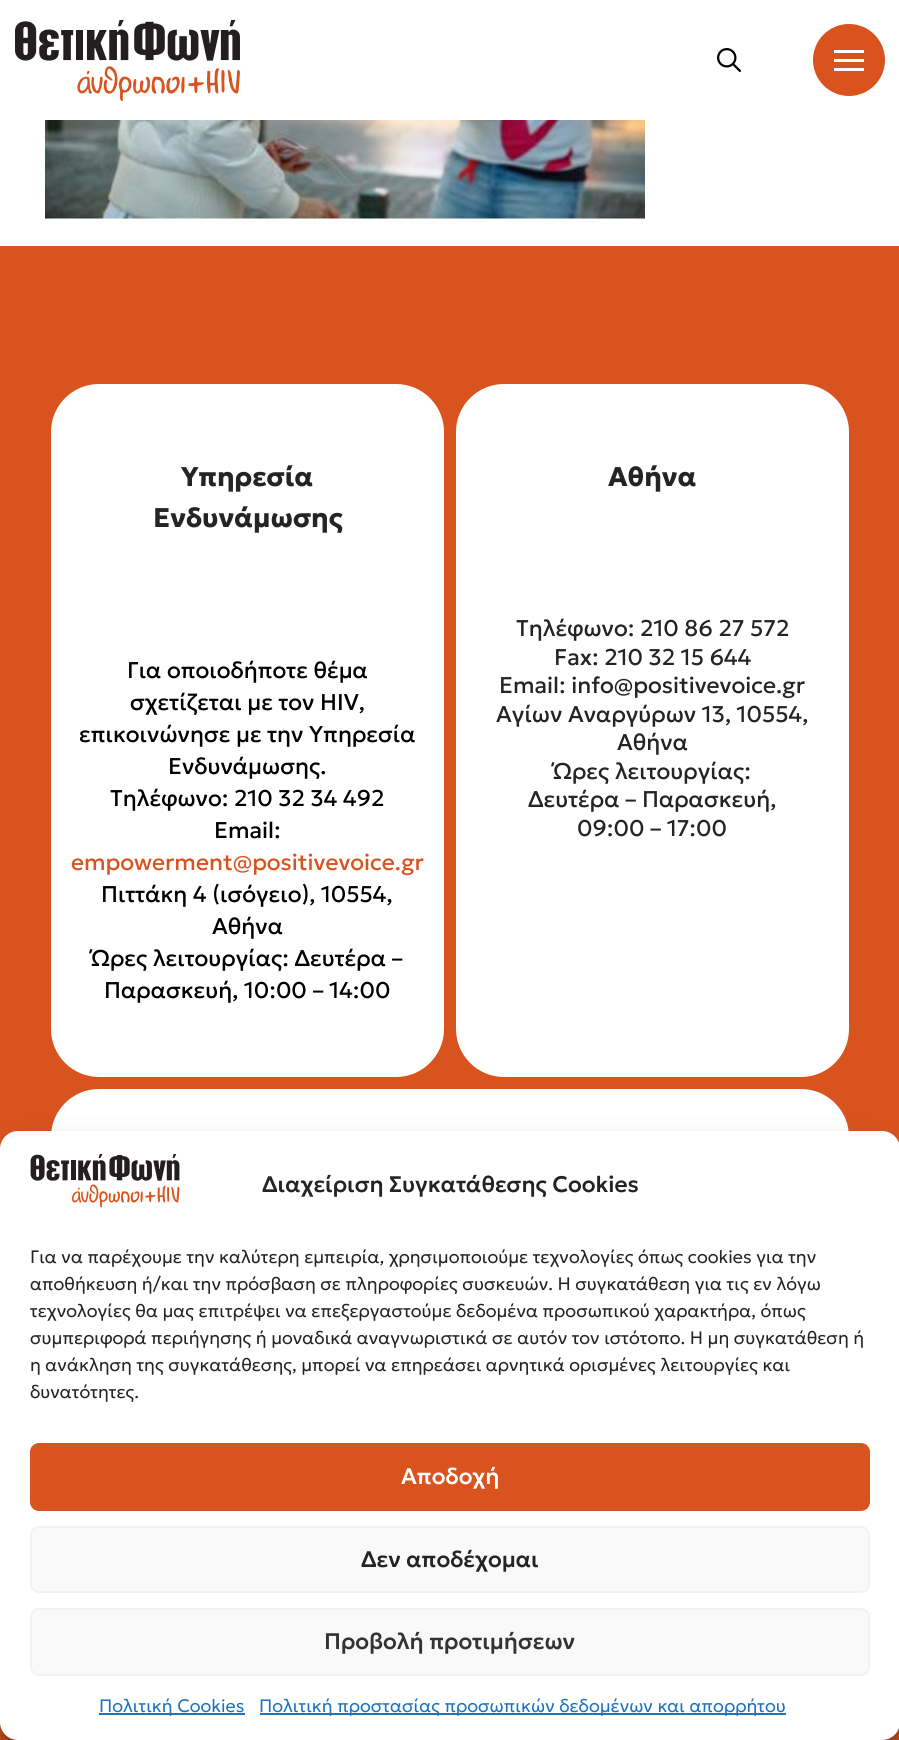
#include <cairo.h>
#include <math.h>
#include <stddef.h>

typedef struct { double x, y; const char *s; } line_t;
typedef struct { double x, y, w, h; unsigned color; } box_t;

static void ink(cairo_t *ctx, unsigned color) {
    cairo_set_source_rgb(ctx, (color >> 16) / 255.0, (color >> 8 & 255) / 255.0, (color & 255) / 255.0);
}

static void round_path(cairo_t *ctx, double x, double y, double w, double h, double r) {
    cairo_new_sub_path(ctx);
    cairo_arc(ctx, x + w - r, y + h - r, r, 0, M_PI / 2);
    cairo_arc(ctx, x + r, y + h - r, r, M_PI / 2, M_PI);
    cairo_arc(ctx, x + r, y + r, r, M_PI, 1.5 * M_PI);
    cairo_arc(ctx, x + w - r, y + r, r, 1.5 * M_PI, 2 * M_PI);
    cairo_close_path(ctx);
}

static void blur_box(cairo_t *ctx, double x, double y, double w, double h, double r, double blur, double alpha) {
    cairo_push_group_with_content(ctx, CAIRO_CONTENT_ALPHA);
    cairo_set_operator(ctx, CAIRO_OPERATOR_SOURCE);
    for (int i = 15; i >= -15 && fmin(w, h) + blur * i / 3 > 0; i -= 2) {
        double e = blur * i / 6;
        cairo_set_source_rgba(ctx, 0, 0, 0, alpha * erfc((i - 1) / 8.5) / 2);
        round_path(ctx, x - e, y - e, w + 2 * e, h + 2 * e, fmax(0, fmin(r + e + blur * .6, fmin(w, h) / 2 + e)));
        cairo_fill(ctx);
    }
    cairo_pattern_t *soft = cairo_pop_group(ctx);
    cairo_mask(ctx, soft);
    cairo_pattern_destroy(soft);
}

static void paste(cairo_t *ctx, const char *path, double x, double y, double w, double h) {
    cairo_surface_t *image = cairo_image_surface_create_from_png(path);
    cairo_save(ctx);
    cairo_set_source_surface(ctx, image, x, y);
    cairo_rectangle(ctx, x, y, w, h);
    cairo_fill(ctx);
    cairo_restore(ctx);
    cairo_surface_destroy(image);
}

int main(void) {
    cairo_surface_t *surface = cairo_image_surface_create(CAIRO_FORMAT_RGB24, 899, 1740);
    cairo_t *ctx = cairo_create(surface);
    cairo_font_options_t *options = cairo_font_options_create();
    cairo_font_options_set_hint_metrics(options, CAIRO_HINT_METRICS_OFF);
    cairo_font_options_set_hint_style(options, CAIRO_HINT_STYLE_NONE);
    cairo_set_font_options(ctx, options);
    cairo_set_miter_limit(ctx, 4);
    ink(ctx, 0xFFFFFF);
    cairo_paint(ctx);
    paste(ctx, "media/1.png", 15, 20, 225, 81);
    paste(ctx, "media/2.png", 717, 48, 24, 24);
    ink(ctx, 0xD9531E);
    cairo_arc(ctx, 849, 60, 36, 0, 2 * M_PI);
    cairo_fill(ctx);
    {
        static const box_t items[] = {
            {834, 50, 30, 3, 0xFFFFFF},
            {834, 59, 30, 3, 0xFFFFFF},
            {834, 68, 30, 3, 0xFFFFFF},
        };
        for (size_t i = 0; i < sizeof items / sizeof *items; i++) {
            ink(ctx, items[i].color);
            cairo_rectangle(ctx, items[i].x, items[i].y, items[i].w, items[i].h);
            cairo_fill(ctx);
        }
    }
    paste(ctx, "media/3.png", 45, 120, 600, 99);
    ink(ctx, 0xD9531E);
    cairo_rectangle(ctx, 0, 246, 899, 903);
    cairo_fill(ctx);
    ink(ctx, 0xFFFFFF);
    round_path(ctx, 51, 384, 393, 693, 48);
    cairo_fill(ctx);
    cairo_select_font_face(ctx, "Geologica", CAIRO_FONT_SLANT_NORMAL, CAIRO_FONT_WEIGHT_BOLD);
    cairo_set_font_size(ctx, 27);
    ink(ctx, 0x242424);
    cairo_move_to(ctx, 181, 486);
    cairo_show_text(ctx, "Υπηρεσία");
    cairo_move_to(ctx, 153, 527);
    cairo_show_text(ctx, "Ενδυνάμωσης");
    cairo_select_font_face(ctx, "Geologica", CAIRO_FONT_SLANT_NORMAL, CAIRO_FONT_WEIGHT_NORMAL);
    cairo_set_font_size(ctx, 22.75);
    ink(ctx, 0x000000);
    {
        static const line_t items[] = {
            {127, 678, "Για οποιοδήποτε θέμα"},
            {130, 710, "σχετίζεται με τον HIV,"},
            {79, 742, "επικοινώνησε με την Υπηρεσία"},
            {168, 774, "Ενδυνάμωσης."},
            {110, 806, "Τηλέφωνο: 210 32 34 492"},
            {214, 838, "Email:"},
        };
        for (size_t i = 0; i < sizeof items / sizeof *items; i++) {
            cairo_move_to(ctx, items[i].x, items[i].y);
            cairo_show_text(ctx, items[i].s);
        }
    }
    ink(ctx, 0xD9531E);
    cairo_move_to(ctx, 71, 870);
    cairo_show_text(ctx, "empowerment@positivevoice.gr");
    ink(ctx, 0x000000);
    {
        static const line_t items[] = {
            {101, 902, "Πιττάκη 4 (ισόγειο), 10554,"},
            {212, 934, "Αθήνα"},
            {91, 966, "Ώρες λειτουργίας: Δευτέρα –"},
            {104, 998, "Παρασκευή, 10:00 – 14:00"},
        };
        for (size_t i = 0; i < sizeof items / sizeof *items; i++) {
            cairo_move_to(ctx, items[i].x, items[i].y);
            cairo_show_text(ctx, items[i].s);
        }
    }
    ink(ctx, 0xFFFFFF);
    round_path(ctx, 456, 384, 393, 693, 48);
    cairo_fill(ctx);
    cairo_select_font_face(ctx, "Geologica", CAIRO_FONT_SLANT_NORMAL, CAIRO_FONT_WEIGHT_BOLD);
    cairo_set_font_size(ctx, 27);
    ink(ctx, 0x242424);
    cairo_move_to(ctx, 608, 486);
    cairo_show_text(ctx, "Αθήνα");
    cairo_select_font_face(ctx, "Geologica", CAIRO_FONT_SLANT_NORMAL, CAIRO_FONT_WEIGHT_NORMAL);
    cairo_set_font_size(ctx, 22.75);
    {
        static const line_t items[] = {
            {516, 636, "Τηλέφωνο: 210 86 27 572"},
            {554, 665, "Fax: 210 32 15 644"},
            {499, 693, "Email: info@positivevoice.gr"},
            {496, 722, "Αγίων Αναργύρων 13, 10554,"},
            {617, 750, "Αθήνα"},
            {553, 779, "Ώρες λειτουργίας:"},
            {528, 807, "Δευτέρα – Παρασκευή,"},
            {577, 836, "09:00 – 17:00"},
        };
        for (size_t i = 0; i < sizeof items / sizeof *items; i++) {
            cairo_move_to(ctx, items[i].x, items[i].y);
            cairo_show_text(ctx, items[i].s);
        }
    }
    ink(ctx, 0xFFFFFF);
    round_path(ctx, 51, 1089, 798, 431, 48);
    cairo_fill(ctx);
    ink(ctx, 0xD9531E);
    cairo_rectangle(ctx, 0, 1722, 899, 18);
    cairo_fill(ctx);
    ink(ctx, 0x000000);
    blur_box(ctx, 0, 1140, 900, 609, 18, 4.5, 0.23);
    blur_box(ctx, 0, 1146, 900, 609, 18, 15, 0.19);
    ink(ctx, 0xFFFFFF);
    round_path(ctx, 0, 1131, 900, 609, 18);
    cairo_fill(ctx);
    paste(ctx, "media/4.png", 30, 1154, 150, 54);
    cairo_select_font_face(ctx, "Geologica Medium", CAIRO_FONT_SLANT_NORMAL, CAIRO_FONT_WEIGHT_NORMAL);
    cairo_set_font_size(ctx, 22.5);
    ink(ctx, 0x242424);
    cairo_move_to(ctx, 262, 1192);
    cairo_show_text(ctx, "Διαχείριση Συγκατάθεσης Cookies");
    cairo_select_font_face(ctx, "Geologica Light", CAIRO_FONT_SLANT_NORMAL, CAIRO_FONT_WEIGHT_NORMAL);
    cairo_set_font_size(ctx, 18);
    {
        static const line_t items[] = {
            {30, 1263, "Για να παρέχουμε την καλύτερη εμπειρία, χρησιμοποιούμε τεχνολογίες όπως cookies για την"},
            {30, 1290, "αποθήκευση ή/και την πρόσβαση σε πληροφορίες συσκευών. Η συγκατάθεση για τις εν λόγω"},
            {30, 1317, "τεχνολογίες θα μας επιτρέψει να επεξεργαστούμε δεδομένα προσωπικού χαρακτήρα, όπως"},
            {30, 1344, "συμπεριφορά περιήγησης ή μοναδικά αναγνωριστικά σε αυτόν τον ιστότοπο. Η μη συγκατάθεση ή"},
            {30, 1371, "η ανάκληση της συγκατάθεσης, μπορεί να επηρεάσει αρνητικά ορισμένες λειτουργίες και"},
            {30, 1398, "δυνατότητες."},
        };
        for (size_t i = 0; i < sizeof items / sizeof *items; i++) {
            cairo_move_to(ctx, items[i].x, items[i].y);
            cairo_show_text(ctx, items[i].s);
        }
    }
    ink(ctx, 0xD9531E);
    round_path(ctx, 31, 1444, 838, 66, 8);
    cairo_fill_preserve(ctx);
    cairo_stroke(ctx);
    cairo_select_font_face(ctx, "Geologica Medium", CAIRO_FONT_SLANT_NORMAL, CAIRO_FONT_WEIGHT_NORMAL);
    cairo_set_font_size(ctx, 22.5);
    ink(ctx, 0xFFFFFF);
    cairo_move_to(ctx, 401, 1484);
    cairo_show_text(ctx, "Αποδοχή");
    ink(ctx, 0xF9F9F9);
    round_path(ctx, 31, 1527, 838, 65, 8);
    cairo_fill_preserve(ctx);
    ink(ctx, 0xF2F2F2);
    cairo_stroke(ctx);
    ink(ctx, 0x242424);
    cairo_move_to(ctx, 361, 1567);
    cairo_show_text(ctx, "Δεν αποδέχομαι");
    ink(ctx, 0xF9F9F9);
    round_path(ctx, 31, 1609, 838, 66, 8);
    cairo_fill_preserve(ctx);
    ink(ctx, 0xF2F2F2);
    cairo_stroke(ctx);
    ink(ctx, 0x333333);
    cairo_move_to(ctx, 324, 1649);
    cairo_show_text(ctx, "Προβολή προτιμήσεων");
    ink(ctx, 0x1E73BE);
    cairo_rectangle(ctx, 99, 1713, 146, 2);
    cairo_fill(ctx);
    cairo_select_font_face(ctx, "Geologica Light", CAIRO_FONT_SLANT_NORMAL, CAIRO_FONT_WEIGHT_NORMAL);
    cairo_set_font_size(ctx, 18);
    cairo_move_to(ctx, 99, 1712);
    cairo_show_text(ctx, "Πολιτική Cookies");
    cairo_rectangle(ctx, 260, 1713, 526, 2);
    cairo_fill(ctx);
    cairo_move_to(ctx, 259, 1712);
    cairo_show_text(ctx, "Πολιτική προστασίας προσωπικών δεδομένων και απορρήτου");
    cairo_surface_write_to_png(surface, "image.png");
    cairo_font_options_destroy(options);
    cairo_destroy(ctx);
    cairo_surface_destroy(surface);
    return 0;
}
